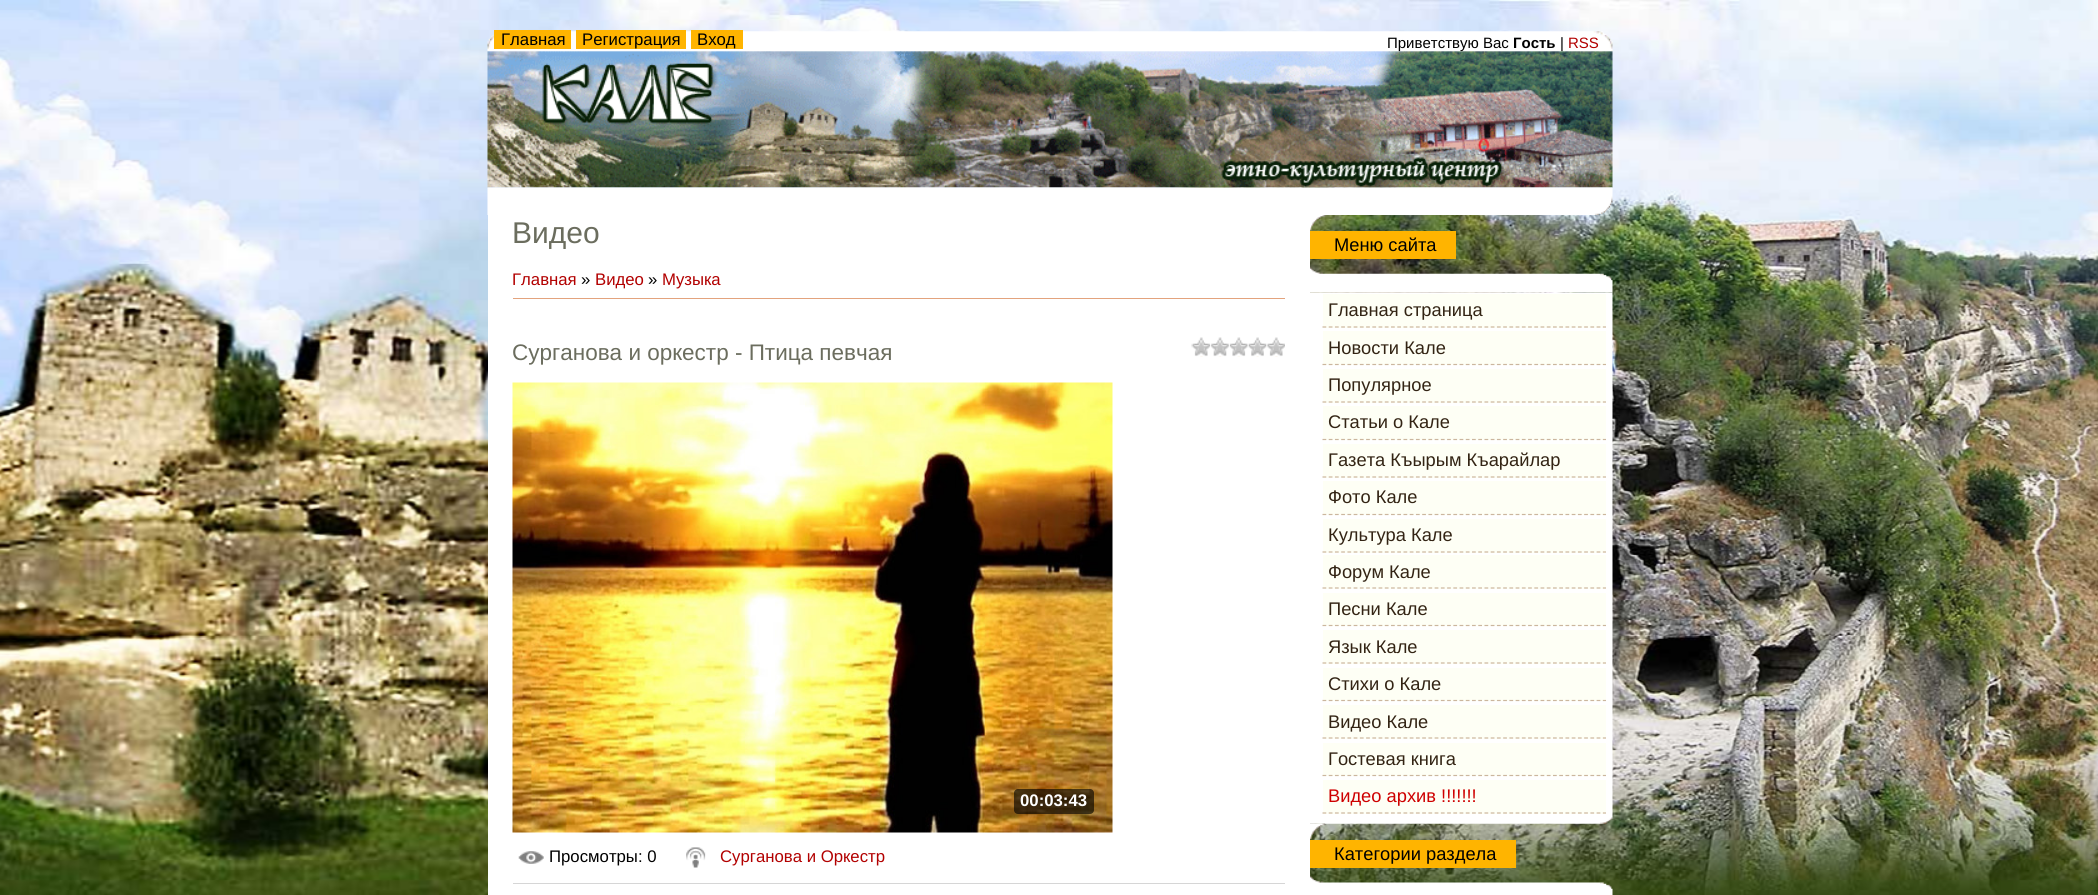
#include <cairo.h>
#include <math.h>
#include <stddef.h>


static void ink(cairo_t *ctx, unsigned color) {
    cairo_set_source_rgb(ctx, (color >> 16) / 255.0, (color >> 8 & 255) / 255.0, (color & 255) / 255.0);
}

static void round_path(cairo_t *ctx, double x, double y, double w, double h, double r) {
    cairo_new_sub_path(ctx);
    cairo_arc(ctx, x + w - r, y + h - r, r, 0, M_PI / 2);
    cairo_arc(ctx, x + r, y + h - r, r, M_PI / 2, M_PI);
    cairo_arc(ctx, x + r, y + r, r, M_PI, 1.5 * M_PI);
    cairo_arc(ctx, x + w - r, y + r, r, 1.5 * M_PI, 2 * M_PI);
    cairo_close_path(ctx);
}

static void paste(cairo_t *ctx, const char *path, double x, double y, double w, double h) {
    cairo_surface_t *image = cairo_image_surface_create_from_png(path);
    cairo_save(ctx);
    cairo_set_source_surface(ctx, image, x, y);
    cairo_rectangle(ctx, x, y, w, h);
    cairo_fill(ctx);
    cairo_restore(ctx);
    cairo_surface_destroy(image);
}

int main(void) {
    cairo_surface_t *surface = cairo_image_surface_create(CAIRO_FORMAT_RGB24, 2098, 895);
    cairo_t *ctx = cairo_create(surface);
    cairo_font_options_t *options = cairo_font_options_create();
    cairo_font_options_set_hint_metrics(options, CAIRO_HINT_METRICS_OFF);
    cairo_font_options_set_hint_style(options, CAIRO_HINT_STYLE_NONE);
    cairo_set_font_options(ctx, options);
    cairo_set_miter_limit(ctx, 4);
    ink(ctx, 0xFFFFFF);
    cairo_paint(ctx);
    paste(ctx, "media/1.png", 0, 0, 2098, 895);
    paste(ctx, "media/2.png", 487, 31, 1126, 157);
    ink(ctx, 0xFFB400);
    cairo_rectangle(ctx, 494, 30, 77, 19);
    cairo_fill(ctx);
    cairo_select_font_face(ctx, "Liberation Sans", CAIRO_FONT_SLANT_NORMAL, CAIRO_FONT_WEIGHT_NORMAL);
    cairo_set_font_size(ctx, 16.75);
    ink(ctx, 0x000000);
    cairo_move_to(ctx, 501, 45);
    cairo_show_text(ctx, "Главная");
    ink(ctx, 0xFFB400);
    cairo_rectangle(ctx, 576, 30, 110, 19);
    cairo_fill(ctx);
    ink(ctx, 0x000000);
    cairo_move_to(ctx, 582, 45);
    cairo_show_text(ctx, "Регистрация");
    ink(ctx, 0xFFB400);
    cairo_rectangle(ctx, 691, 30, 52, 19);
    cairo_fill(ctx);
    ink(ctx, 0x000000);
    cairo_move_to(ctx, 697, 45);
    cairo_show_text(ctx, "Вход");
    cairo_set_font_size(ctx, 15);
    cairo_move_to(ctx, 1387, 48);
    cairo_show_text(ctx, "Приветствую Вас");
    cairo_select_font_face(ctx, "Liberation Sans", CAIRO_FONT_SLANT_NORMAL, CAIRO_FONT_WEIGHT_BOLD);
    cairo_move_to(ctx, 1513, 48);
    cairo_show_text(ctx, "Гость");
    cairo_select_font_face(ctx, "Liberation Sans", CAIRO_FONT_SLANT_NORMAL, CAIRO_FONT_WEIGHT_NORMAL);
    cairo_move_to(ctx, 1560, 48);
    cairo_show_text(ctx, "|");
    ink(ctx, 0xB20000);
    cairo_move_to(ctx, 1568, 48);
    cairo_show_text(ctx, "RSS");
    paste(ctx, "media/3.png", 487, 187, 1126, 28);
    ink(ctx, 0xFFFFFF);
    cairo_rectangle(ctx, 488, 215, 822, 680);
    cairo_fill(ctx);
    cairo_set_font_size(ctx, 30);
    ink(ctx, 0x6B6D5E);
    cairo_move_to(ctx, 512, 243);
    cairo_show_text(ctx, "Видео");
    cairo_set_font_size(ctx, 16.75);
    ink(ctx, 0xB20000);
    cairo_move_to(ctx, 512, 285);
    cairo_show_text(ctx, "Главная");
    ink(ctx, 0x000000);
    cairo_move_to(ctx, 581, 285);
    cairo_show_text(ctx, "»");
    ink(ctx, 0xB20000);
    cairo_move_to(ctx, 595, 285);
    cairo_show_text(ctx, "Видео");
    ink(ctx, 0x000000);
    cairo_move_to(ctx, 648, 285);
    cairo_show_text(ctx, "»");
    ink(ctx, 0xB20000);
    cairo_move_to(ctx, 662, 285);
    cairo_show_text(ctx, "Музыка");
    ink(ctx, 0xE3A37D);
    cairo_rectangle(ctx, 513, 298, 772, 1);
    cairo_fill(ctx);
    cairo_set_font_size(ctx, 22.5);
    ink(ctx, 0x6B6D5E);
    cairo_move_to(ctx, 512, 360);
    cairo_show_text(ctx, "Сурганова и оркестр - Птица певчая");
    paste(ctx, "media/4.png", 1191, 337, 94, 20);
    paste(ctx, "media/5.png", 512, 382, 601, 451);
    cairo_set_source_rgba(ctx, 0, 0, 0, 0.63);
    round_path(ctx, 1014, 789, 80, 25, 4);
    cairo_fill(ctx);
    cairo_select_font_face(ctx, "Liberation Sans", CAIRO_FONT_SLANT_NORMAL, CAIRO_FONT_WEIGHT_BOLD);
    cairo_set_font_size(ctx, 16.75);
    ink(ctx, 0xFFFFFF);
    cairo_move_to(ctx, 1020, 806);
    cairo_show_text(ctx, "00:03:43");
    paste(ctx, "media/6.png", 518, 851, 26, 13);
    cairo_select_font_face(ctx, "Liberation Sans", CAIRO_FONT_SLANT_NORMAL, CAIRO_FONT_WEIGHT_NORMAL);
    ink(ctx, 0x000000);
    cairo_move_to(ctx, 549, 862);
    cairo_show_text(ctx, "Просмотры: 0");
    paste(ctx, "media/7.png", 686, 847, 20, 21);
    ink(ctx, 0xB20000);
    cairo_move_to(ctx, 720, 862);
    cairo_show_text(ctx, "Сурганова и Оркестр");
    ink(ctx, 0xD6D6D6);
    cairo_rectangle(ctx, 513, 883, 772, 1);
    cairo_fill(ctx);
    paste(ctx, "media/8.png", 1310, 215, 16, 16);
    paste(ctx, "media/9.png", 1310, 267, 303, 26);
    ink(ctx, 0xFFB400);
    cairo_rectangle(ctx, 1310, 231, 146, 28);
    cairo_fill(ctx);
    cairo_set_font_size(ctx, 18.3);
    ink(ctx, 0x000000);
    cairo_move_to(ctx, 1334, 251);
    cairo_show_text(ctx, "Меню сайта");
    paste(ctx, "media/10.png", 1310, 292, 303, 532);
    ink(ctx, 0xFEFFF5);
    cairo_rectangle(ctx, 1323, 294, 283, 34);
    cairo_fill(ctx);
    cairo_new_path(ctx);
    cairo_move_to(ctx, 1322.5, 327);
    cairo_line_to(ctx, 1606, 327);
    ink(ctx, 0xCBB69E);
    cairo_set_line_width(ctx, 1.2);
    cairo_set_dash(ctx, (double[]){3.75, 2.48}, 2, 0);
    cairo_stroke(ctx);
    ink(ctx, 0x332414);
    cairo_move_to(ctx, 1328, 316);
    cairo_show_text(ctx, "Главная страница");
    ink(ctx, 0xFEFFF5);
    cairo_rectangle(ctx, 1323, 331, 283, 34);
    cairo_fill(ctx);
    cairo_new_path(ctx);
    cairo_move_to(ctx, 1322.5, 364.5);
    cairo_line_to(ctx, 1606, 364.5);
    ink(ctx, 0xCBB69E);
    cairo_stroke(ctx);
    ink(ctx, 0x332414);
    cairo_move_to(ctx, 1328, 354);
    cairo_show_text(ctx, "Новости Кале");
    ink(ctx, 0xFEFFF5);
    cairo_rectangle(ctx, 1323, 369, 283, 34);
    cairo_fill(ctx);
    cairo_new_path(ctx);
    cairo_move_to(ctx, 1322.5, 402);
    cairo_line_to(ctx, 1606, 402);
    ink(ctx, 0xCBB69E);
    cairo_stroke(ctx);
    ink(ctx, 0x332414);
    cairo_move_to(ctx, 1328, 391);
    cairo_show_text(ctx, "Популярное");
    ink(ctx, 0xFEFFF5);
    cairo_rectangle(ctx, 1323, 406, 283, 34);
    cairo_fill(ctx);
    cairo_new_path(ctx);
    cairo_move_to(ctx, 1322.5, 439.5);
    cairo_line_to(ctx, 1606, 439.5);
    ink(ctx, 0xCBB69E);
    cairo_stroke(ctx);
    ink(ctx, 0x332414);
    cairo_move_to(ctx, 1328, 428);
    cairo_show_text(ctx, "Статьи о Кале");
    ink(ctx, 0xFEFFF5);
    cairo_rectangle(ctx, 1323, 444, 283, 34);
    cairo_fill(ctx);
    cairo_new_path(ctx);
    cairo_move_to(ctx, 1322.5, 477);
    cairo_line_to(ctx, 1606, 477);
    ink(ctx, 0xCBB69E);
    cairo_stroke(ctx);
    ink(ctx, 0x332414);
    cairo_move_to(ctx, 1328, 466);
    cairo_show_text(ctx, "Газета Къырым Къарайлар");
    ink(ctx, 0xFEFFF5);
    cairo_rectangle(ctx, 1323, 481, 283, 34);
    cairo_fill(ctx);
    cairo_new_path(ctx);
    cairo_move_to(ctx, 1322.5, 514.5);
    cairo_line_to(ctx, 1606, 514.5);
    ink(ctx, 0xCBB69E);
    cairo_stroke(ctx);
    ink(ctx, 0x332414);
    cairo_move_to(ctx, 1328, 503);
    cairo_show_text(ctx, "Фото Кале");
    ink(ctx, 0xFEFFF5);
    cairo_rectangle(ctx, 1323, 519, 283, 34);
    cairo_fill(ctx);
    cairo_new_path(ctx);
    cairo_move_to(ctx, 1322.5, 552);
    cairo_line_to(ctx, 1606, 552);
    ink(ctx, 0xCBB69E);
    cairo_stroke(ctx);
    ink(ctx, 0x332414);
    cairo_move_to(ctx, 1328, 541);
    cairo_show_text(ctx, "Культура Кале");
    ink(ctx, 0xFEFFF5);
    cairo_rectangle(ctx, 1323, 555, 283, 34);
    cairo_fill(ctx);
    cairo_new_path(ctx);
    cairo_move_to(ctx, 1322.5, 588);
    cairo_line_to(ctx, 1606, 588);
    ink(ctx, 0xCBB69E);
    cairo_stroke(ctx);
    ink(ctx, 0x332414);
    cairo_move_to(ctx, 1328, 578);
    cairo_show_text(ctx, "Форум Кале");
    ink(ctx, 0xFEFFF5);
    cairo_rectangle(ctx, 1323, 593, 283, 33);
    cairo_fill(ctx);
    cairo_new_path(ctx);
    cairo_move_to(ctx, 1322.5, 625.5);
    cairo_line_to(ctx, 1606, 625.5);
    ink(ctx, 0xCBB69E);
    cairo_stroke(ctx);
    ink(ctx, 0x332414);
    cairo_move_to(ctx, 1328, 615);
    cairo_show_text(ctx, "Песни Кале");
    ink(ctx, 0xFEFFF5);
    cairo_rectangle(ctx, 1323, 630, 283, 34);
    cairo_fill(ctx);
    cairo_new_path(ctx);
    cairo_move_to(ctx, 1322.5, 663);
    cairo_line_to(ctx, 1606, 663);
    ink(ctx, 0xCBB69E);
    cairo_stroke(ctx);
    ink(ctx, 0x332414);
    cairo_move_to(ctx, 1328, 653);
    cairo_show_text(ctx, "Язык Кале");
    ink(ctx, 0xFEFFF5);
    cairo_rectangle(ctx, 1323, 668, 283, 33);
    cairo_fill(ctx);
    cairo_new_path(ctx);
    cairo_move_to(ctx, 1322.5, 700.5);
    cairo_line_to(ctx, 1606, 700.5);
    ink(ctx, 0xCBB69E);
    cairo_stroke(ctx);
    ink(ctx, 0x332414);
    cairo_move_to(ctx, 1328, 690);
    cairo_show_text(ctx, "Стихи о Кале");
    ink(ctx, 0xFEFFF5);
    cairo_rectangle(ctx, 1323, 705, 283, 34);
    cairo_fill(ctx);
    cairo_new_path(ctx);
    cairo_move_to(ctx, 1322.5, 738);
    cairo_line_to(ctx, 1606, 738);
    ink(ctx, 0xCBB69E);
    cairo_stroke(ctx);
    ink(ctx, 0x332414);
    cairo_move_to(ctx, 1328, 728);
    cairo_show_text(ctx, "Видео Кале");
    ink(ctx, 0xFEFFF5);
    cairo_rectangle(ctx, 1323, 743, 283, 33);
    cairo_fill(ctx);
    cairo_new_path(ctx);
    cairo_move_to(ctx, 1322.5, 775.5);
    cairo_line_to(ctx, 1606, 775.5);
    ink(ctx, 0xCBB69E);
    cairo_stroke(ctx);
    ink(ctx, 0x332414);
    cairo_move_to(ctx, 1328, 765);
    cairo_show_text(ctx, "Гостевая книга");
    ink(ctx, 0xFEFFF5);
    cairo_rectangle(ctx, 1323, 780, 283, 34);
    cairo_fill(ctx);
    cairo_new_path(ctx);
    cairo_move_to(ctx, 1322.5, 813);
    cairo_line_to(ctx, 1606, 813);
    ink(ctx, 0xCBB69E);
    cairo_stroke(ctx);
    ink(ctx, 0xCE0000);
    cairo_move_to(ctx, 1328, 802);
    cairo_show_text(ctx, "Видео архив !!!!!!!");
    paste(ctx, "media/11.png", 1310, 823, 15, 16);
    paste(ctx, "media/12.png", 1310, 876, 303, 19);
    ink(ctx, 0xFFB400);
    cairo_rectangle(ctx, 1310, 840, 206, 28);
    cairo_fill(ctx);
    ink(ctx, 0x000000);
    cairo_move_to(ctx, 1334, 860);
    cairo_show_text(ctx, "Категории раздела");
    cairo_surface_write_to_png(surface, "image.png");
    cairo_font_options_destroy(options);
    cairo_destroy(ctx);
    cairo_surface_destroy(surface);
    return 0;
}
